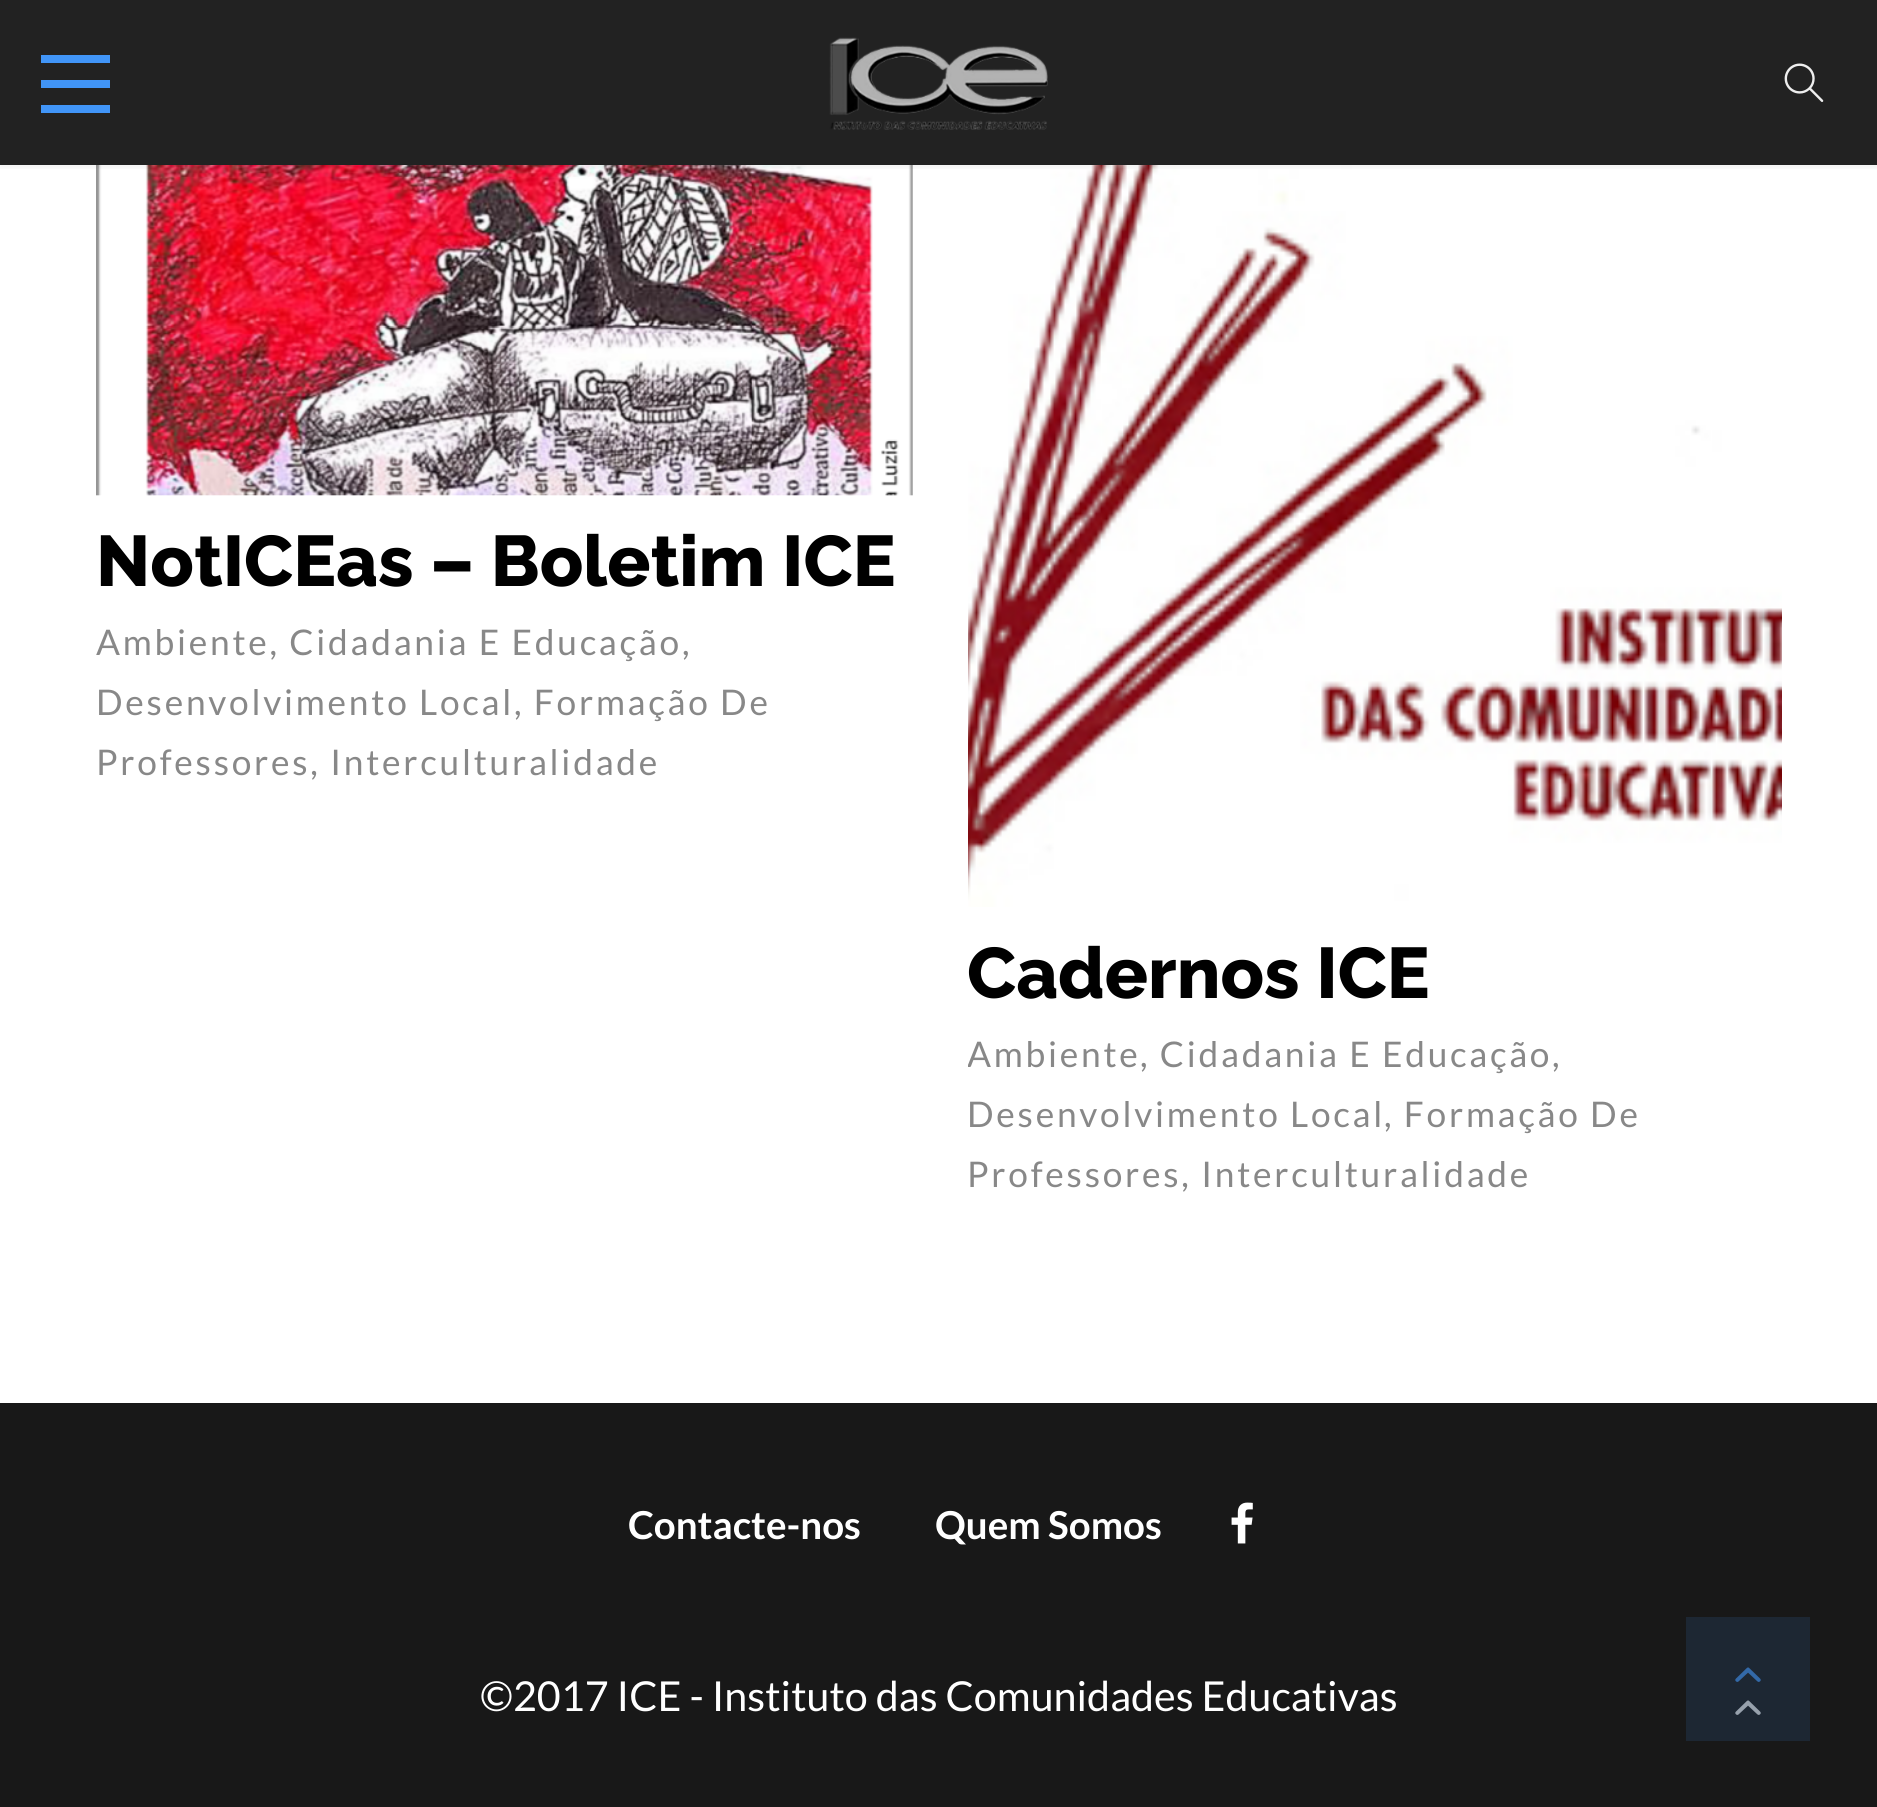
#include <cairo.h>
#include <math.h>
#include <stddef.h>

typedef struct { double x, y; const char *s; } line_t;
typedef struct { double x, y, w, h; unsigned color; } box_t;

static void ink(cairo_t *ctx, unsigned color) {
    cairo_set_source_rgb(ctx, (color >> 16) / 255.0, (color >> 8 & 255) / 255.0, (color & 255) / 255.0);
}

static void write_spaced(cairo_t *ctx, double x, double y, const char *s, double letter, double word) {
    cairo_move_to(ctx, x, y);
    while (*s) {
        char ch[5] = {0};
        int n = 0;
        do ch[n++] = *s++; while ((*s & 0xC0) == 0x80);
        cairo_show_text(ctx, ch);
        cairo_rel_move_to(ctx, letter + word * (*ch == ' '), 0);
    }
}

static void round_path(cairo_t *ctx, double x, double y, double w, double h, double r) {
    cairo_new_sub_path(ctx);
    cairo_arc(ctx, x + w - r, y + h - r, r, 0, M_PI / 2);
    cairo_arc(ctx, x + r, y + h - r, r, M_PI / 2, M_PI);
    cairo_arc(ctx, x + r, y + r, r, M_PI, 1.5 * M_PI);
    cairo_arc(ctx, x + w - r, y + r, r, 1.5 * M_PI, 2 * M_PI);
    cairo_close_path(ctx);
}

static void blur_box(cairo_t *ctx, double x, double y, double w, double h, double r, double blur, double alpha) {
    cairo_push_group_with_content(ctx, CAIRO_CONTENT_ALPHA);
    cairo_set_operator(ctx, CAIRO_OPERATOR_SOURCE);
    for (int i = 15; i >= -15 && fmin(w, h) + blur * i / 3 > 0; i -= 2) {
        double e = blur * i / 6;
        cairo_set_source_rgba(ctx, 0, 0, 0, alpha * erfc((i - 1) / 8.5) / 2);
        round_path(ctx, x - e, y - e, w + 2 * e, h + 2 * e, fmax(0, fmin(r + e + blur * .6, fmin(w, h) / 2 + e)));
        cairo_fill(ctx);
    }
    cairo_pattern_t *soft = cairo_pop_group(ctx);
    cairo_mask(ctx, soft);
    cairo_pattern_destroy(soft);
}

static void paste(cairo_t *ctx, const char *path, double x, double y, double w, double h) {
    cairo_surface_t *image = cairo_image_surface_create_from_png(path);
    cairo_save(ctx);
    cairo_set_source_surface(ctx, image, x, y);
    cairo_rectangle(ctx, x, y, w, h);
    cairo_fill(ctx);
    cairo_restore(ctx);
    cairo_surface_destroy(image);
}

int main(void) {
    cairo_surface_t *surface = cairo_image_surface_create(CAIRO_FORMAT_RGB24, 1877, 1807);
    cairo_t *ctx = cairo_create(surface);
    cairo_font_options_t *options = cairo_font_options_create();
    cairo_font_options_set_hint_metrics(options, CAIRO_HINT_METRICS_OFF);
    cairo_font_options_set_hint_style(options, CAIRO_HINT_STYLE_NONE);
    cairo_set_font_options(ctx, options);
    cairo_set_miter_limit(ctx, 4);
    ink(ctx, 0xFFFFFF);
    cairo_paint(ctx);
    ink(ctx, 0x222222);
    cairo_rectangle(ctx, 0, 0, 1877, 165);
    cairo_fill(ctx);
    paste(ctx, "media/3.png", 96, 165, 817, 331);
    paste(ctx, "media/4.png", 968, 165, 814, 742);
    cairo_save(ctx);
    cairo_rectangle(ctx, 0, 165, 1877, 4);
    cairo_clip(ctx);
    ink(ctx, 0x000000);
    blur_box(ctx, 0, 3, 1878, 165, 0, 3, 0.05);
    cairo_restore(ctx);
    {
        static const box_t items[] = {
            {41, 80, 69, 8, 0x4195F7},
            {41, 55, 69, 8, 0x4195F7},
            {41, 105, 69, 8, 0x4195F7},
        };
        for (size_t i = 0; i < sizeof items / sizeof *items; i++) {
            ink(ctx, items[i].color);
            cairo_rectangle(ctx, items[i].x, items[i].y, items[i].w, items[i].h);
            cairo_fill(ctx);
        }
    }
    paste(ctx, "media/1.png", 829, 37, 219, 93);
    paste(ctx, "media/2.png", 1784, 63, 40, 39);
    cairo_select_font_face(ctx, "Raleway ExtraBold", CAIRO_FONT_SLANT_NORMAL, CAIRO_FONT_WEIGHT_NORMAL);
    cairo_set_font_size(ctx, 71.5);
    ink(ctx, 0x000000);
    cairo_move_to(ctx, 96, 586);
    cairo_show_text(ctx, "NotICEas – Boletim ICE");
    cairo_select_font_face(ctx, "Lato", CAIRO_FONT_SLANT_NORMAL, CAIRO_FONT_WEIGHT_NORMAL);
    cairo_set_font_size(ctx, 35.3);
    ink(ctx, 0x888888);
    {
        static const line_t items[] = {
            {96, 655, "Ambiente, Cidadania E Educação"},
            {682, 655, ","},
            {96, 715, "Desenvolvimento Local"},
            {514, 715, ", Formação De"},
            {96, 775, "Professores, Interculturalidade"},
        };
        for (size_t i = 0; i < sizeof items / sizeof *items; i++) {
            write_spaced(ctx, items[i].x, items[i].y, items[i].s, 2.75, 0);
        }
    }
    cairo_select_font_face(ctx, "Raleway ExtraBold", CAIRO_FONT_SLANT_NORMAL, CAIRO_FONT_WEIGHT_NORMAL);
    cairo_set_font_size(ctx, 71.5);
    ink(ctx, 0x000000);
    cairo_move_to(ctx, 967, 998);
    cairo_show_text(ctx, "Cadernos ICE");
    cairo_save(ctx);
    cairo_rectangle(ctx, 968, 1012, 814, 209);
    cairo_clip(ctx);
    cairo_select_font_face(ctx, "Lato", CAIRO_FONT_SLANT_NORMAL, CAIRO_FONT_WEIGHT_NORMAL);
    cairo_set_font_size(ctx, 35.3);
    ink(ctx, 0x888888);
    write_spaced(ctx, 967, 1067, "Ambiente", 2.75, 0);
    cairo_restore(ctx);
    cairo_select_font_face(ctx, "Lato", CAIRO_FONT_SLANT_NORMAL, CAIRO_FONT_WEIGHT_NORMAL);
    cairo_set_font_size(ctx, 35.3);
    ink(ctx, 0x888888);
    {
        static const line_t items[] = {
            {1140, 1067, ", Cidadania E Educação"},
            {1552, 1067, ","},
            {967, 1127, "Desenvolvimento Local"},
            {1384, 1127, ", Formação De"},
            {967, 1187, "Professores, Interculturalidade"},
        };
        for (size_t i = 0; i < sizeof items / sizeof *items; i++) {
            write_spaced(ctx, items[i].x, items[i].y, items[i].s, 2.75, 0);
        }
    }
    ink(ctx, 0x181818);
    cairo_rectangle(ctx, 0, 1403, 1877, 404);
    cairo_fill(ctx);
    ink(ctx, 0x1D2733);
    cairo_rectangle(ctx, 1686, 1617, 124, 124);
    cairo_fill(ctx);
    cairo_select_font_face(ctx, "Lato", CAIRO_FONT_SLANT_NORMAL, CAIRO_FONT_WEIGHT_BOLD);
    cairo_set_font_size(ctx, 38.5);
    ink(ctx, 0xFFFFFF);
    cairo_move_to(ctx, 628, 1539);
    cairo_show_text(ctx, "Contacte-nos");
    cairo_move_to(ctx, 935, 1539);
    cairo_show_text(ctx, "Quem Somos");
    paste(ctx, "media/5.png", 1231, 1502, 22, 42);
    cairo_select_font_face(ctx, "Lato", CAIRO_FONT_SLANT_NORMAL, CAIRO_FONT_WEIGHT_NORMAL);
    cairo_set_font_size(ctx, 41.25);
    cairo_move_to(ctx, 480, 1711);
    cairo_show_text(ctx, "©2017 ICE - Instituto das Comunidades Educativas");
    paste(ctx, "media/6.png", 1735, 1700, 26, 15);
    paste(ctx, "media/7.png", 1735, 1667, 26, 15);
    cairo_surface_write_to_png(surface, "image.png");
    cairo_font_options_destroy(options);
    cairo_destroy(ctx);
    cairo_surface_destroy(surface);
    return 0;
}
